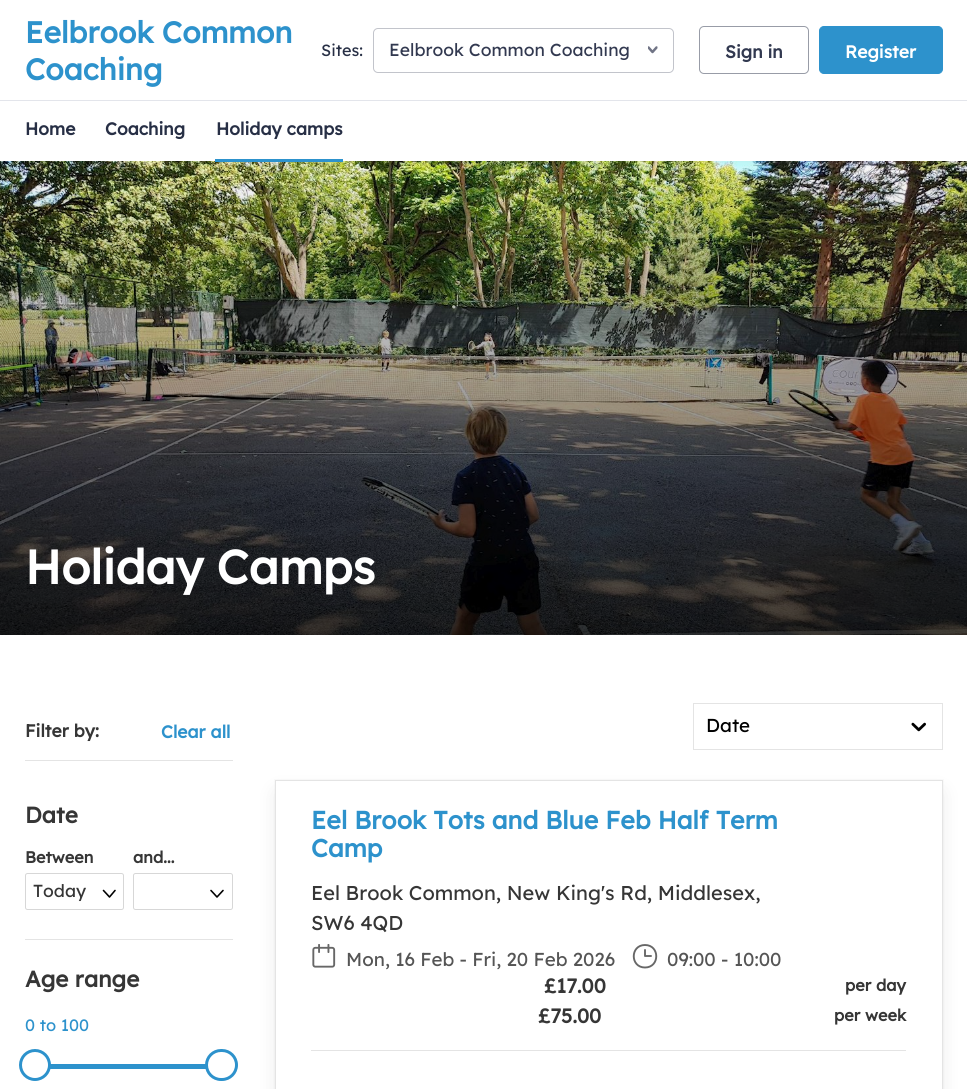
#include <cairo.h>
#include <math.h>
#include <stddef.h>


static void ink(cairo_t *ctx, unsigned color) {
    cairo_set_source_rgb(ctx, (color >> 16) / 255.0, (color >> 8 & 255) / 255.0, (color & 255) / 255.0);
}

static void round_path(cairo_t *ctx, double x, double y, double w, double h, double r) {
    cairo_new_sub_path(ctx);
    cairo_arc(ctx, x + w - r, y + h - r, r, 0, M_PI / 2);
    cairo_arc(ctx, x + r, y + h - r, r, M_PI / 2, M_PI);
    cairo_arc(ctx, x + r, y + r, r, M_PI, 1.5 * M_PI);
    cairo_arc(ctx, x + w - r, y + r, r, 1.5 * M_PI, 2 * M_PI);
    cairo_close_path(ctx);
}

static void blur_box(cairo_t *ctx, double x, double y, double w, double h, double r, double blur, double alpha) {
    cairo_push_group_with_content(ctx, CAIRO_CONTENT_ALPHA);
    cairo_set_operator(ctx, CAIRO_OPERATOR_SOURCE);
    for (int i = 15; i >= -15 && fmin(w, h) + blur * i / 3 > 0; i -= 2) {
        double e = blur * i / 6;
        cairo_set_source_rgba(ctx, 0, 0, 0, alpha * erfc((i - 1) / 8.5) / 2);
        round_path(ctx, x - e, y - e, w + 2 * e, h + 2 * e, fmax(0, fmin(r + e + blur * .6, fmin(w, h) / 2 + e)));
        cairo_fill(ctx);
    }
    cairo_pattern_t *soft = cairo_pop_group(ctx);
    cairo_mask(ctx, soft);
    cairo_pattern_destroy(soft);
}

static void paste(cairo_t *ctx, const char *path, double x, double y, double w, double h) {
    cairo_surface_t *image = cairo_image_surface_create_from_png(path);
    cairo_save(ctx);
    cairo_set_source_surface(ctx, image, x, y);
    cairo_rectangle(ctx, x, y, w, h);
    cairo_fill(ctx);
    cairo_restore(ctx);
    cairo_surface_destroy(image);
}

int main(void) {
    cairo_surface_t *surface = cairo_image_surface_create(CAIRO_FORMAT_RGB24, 967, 1089);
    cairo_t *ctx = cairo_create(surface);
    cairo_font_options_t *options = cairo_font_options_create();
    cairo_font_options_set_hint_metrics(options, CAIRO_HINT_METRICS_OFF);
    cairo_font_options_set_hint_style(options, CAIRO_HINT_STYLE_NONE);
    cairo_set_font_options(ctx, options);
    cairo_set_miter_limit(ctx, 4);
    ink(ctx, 0xFFFFFF);
    cairo_paint(ctx);
    paste(ctx, "media/1.png", 0, 161, 967, 474);
    ink(ctx, 0x141D37);
    blur_box(ctx, 0, 3, 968, 161, 0, 4, 0.06);
    ink(ctx, 0xFFFFFF);
    cairo_rectangle(ctx, 0, 0, 967, 161);
    cairo_fill(ctx);
    cairo_select_font_face(ctx, "Lexend", CAIRO_FONT_SLANT_NORMAL, CAIRO_FONT_WEIGHT_BOLD);
    cairo_set_font_size(ctx, 30);
    ink(ctx, 0x2D92CC);
    cairo_move_to(ctx, 25, 43);
    cairo_show_text(ctx, "Eelbrook Common");
    cairo_move_to(ctx, 25, 80);
    cairo_show_text(ctx, "Coaching");
    cairo_select_font_face(ctx, "Lexend", CAIRO_FONT_SLANT_NORMAL, CAIRO_FONT_WEIGHT_NORMAL);
    cairo_set_font_size(ctx, 16.25);
    ink(ctx, 0x272F45);
    cairo_move_to(ctx, 321, 56);
    cairo_show_text(ctx, "Sites:");
    round_path(ctx, 373.5, 28.5, 300, 44, 4.5);
    ink(ctx, 0xC2C4CB);
    cairo_set_line_width(ctx, 1);
    cairo_stroke(ctx);
    cairo_set_font_size(ctx, 17.5);
    ink(ctx, 0x323950);
    cairo_move_to(ctx, 389, 56);
    cairo_show_text(ctx, "Eelbrook Common Coaching");
    cairo_save(ctx);
    cairo_rectangle(ctx, 648, 45, 10, 10);
    cairo_clip(ctx);
    cairo_new_path(ctx);
    cairo_move_to(ctx, 647.5, 45);
    cairo_line_to(ctx, 657.5, 45);
    cairo_line_to(ctx, 657.5, 55);
    cairo_line_to(ctx, 647.5, 55);
    cairo_close_path(ctx);
    cairo_clip(ctx);
    cairo_new_path(ctx);
    cairo_move_to(ctx, 648.5, 47.5);
    cairo_line_to(ctx, 652.5, 52);
    cairo_line_to(ctx, 656.5, 47.5);
    ink(ctx, 0x707485);
    cairo_set_line_width(ctx, 2.5);
    cairo_set_line_cap(ctx, CAIRO_LINE_CAP_ROUND);
    cairo_set_line_join(ctx, CAIRO_LINE_JOIN_ROUND);
    cairo_stroke(ctx);
    cairo_restore(ctx);
    round_path(ctx, 699.5, 26.5, 109, 47, 4.5);
    ink(ctx, 0x989CA7);
    cairo_stroke(ctx);
    cairo_select_font_face(ctx, "Lexend", CAIRO_FONT_SLANT_NORMAL, CAIRO_FONT_WEIGHT_BOLD);
    ink(ctx, 0x323950);
    cairo_move_to(ctx, 725, 58);
    cairo_show_text(ctx, "Sign in");
    ink(ctx, 0x2D92CC);
    round_path(ctx, 819.5, 26.5, 123, 47, 4.5);
    cairo_fill_preserve(ctx);
    cairo_stroke(ctx);
    ink(ctx, 0xFFFFFF);
    cairo_move_to(ctx, 845, 58);
    cairo_show_text(ctx, "Register");
    ink(ctx, 0xE3E5EB);
    cairo_rectangle(ctx, 0, 100, 967, 1);
    cairo_fill(ctx);
    ink(ctx, 0x272F45);
    cairo_move_to(ctx, 25, 135);
    cairo_show_text(ctx, "Home");
    cairo_move_to(ctx, 105, 135);
    cairo_show_text(ctx, "Coaching");
    ink(ctx, 0x2D92CC);
    cairo_rectangle(ctx, 215, 159, 128, 3);
    cairo_fill(ctx);
    ink(ctx, 0x272F45);
    cairo_move_to(ctx, 216, 135);
    cairo_show_text(ctx, "Holiday camps");
    cairo_set_font_size(ctx, 47.5);
    ink(ctx, 0xFFFFFF);
    cairo_move_to(ctx, 25, 584);
    cairo_show_text(ctx, "Holiday Camps");
    ink(ctx, 0xE4E4E4);
    cairo_rectangle(ctx, 25, 760, 208, 1);
    cairo_fill(ctx);
    cairo_set_font_size(ctx, 17.5);
    ink(ctx, 0x363636);
    cairo_move_to(ctx, 25, 737);
    cairo_show_text(ctx, "Filter by:");
    ink(ctx, 0x2D92CC);
    cairo_move_to(ctx, 161, 738);
    cairo_show_text(ctx, "Clear all");
    ink(ctx, 0xE4E4E4);
    cairo_rectangle(ctx, 25, 939, 208, 1);
    cairo_fill(ctx);
    cairo_set_font_size(ctx, 22.5);
    ink(ctx, 0x363636);
    cairo_move_to(ctx, 25, 823);
    cairo_show_text(ctx, "Date");
    cairo_set_font_size(ctx, 16.25);
    cairo_move_to(ctx, 25, 863);
    cairo_show_text(ctx, "Between");
    cairo_new_path(ctx);
    cairo_move_to(ctx, 115, 890.5);
    cairo_line_to(ctx, 109.5, 897);
    cairo_line_to(ctx, 103.5, 890.5);
    ink(ctx, 0x000000);
    cairo_set_line_width(ctx, 1.6);
    cairo_set_line_cap(ctx, CAIRO_LINE_CAP_ROUND);
    cairo_set_line_join(ctx, CAIRO_LINE_JOIN_ROUND);
    cairo_stroke(ctx);
    round_path(ctx, 25.5, 873.5, 98, 36, 2);
    ink(ctx, 0xD7D7D7);
    cairo_set_line_width(ctx, 1);
    cairo_set_line_cap(ctx, CAIRO_LINE_CAP_BUTT);
    cairo_set_line_join(ctx, CAIRO_LINE_JOIN_MITER);
    cairo_stroke(ctx);
    cairo_select_font_face(ctx, "Lexend", CAIRO_FONT_SLANT_NORMAL, CAIRO_FONT_WEIGHT_NORMAL);
    cairo_set_font_size(ctx, 17.5);
    ink(ctx, 0x363636);
    cairo_move_to(ctx, 33, 897);
    cairo_show_text(ctx, "Today");
    cairo_select_font_face(ctx, "Lexend", CAIRO_FONT_SLANT_NORMAL, CAIRO_FONT_WEIGHT_BOLD);
    cairo_set_font_size(ctx, 16.25);
    cairo_move_to(ctx, 133, 863);
    cairo_show_text(ctx, "and...");
    cairo_new_path(ctx);
    cairo_move_to(ctx, 223, 890.5);
    cairo_line_to(ctx, 217, 897);
    cairo_line_to(ctx, 211, 890.5);
    ink(ctx, 0x000000);
    cairo_set_line_width(ctx, 1.6);
    cairo_set_line_cap(ctx, CAIRO_LINE_CAP_ROUND);
    cairo_set_line_join(ctx, CAIRO_LINE_JOIN_ROUND);
    cairo_stroke(ctx);
    round_path(ctx, 133.5, 873.5, 99, 36, 2);
    ink(ctx, 0xD7D7D7);
    cairo_set_line_width(ctx, 1);
    cairo_set_line_cap(ctx, CAIRO_LINE_CAP_BUTT);
    cairo_set_line_join(ctx, CAIRO_LINE_JOIN_MITER);
    cairo_stroke(ctx);
    cairo_set_font_size(ctx, 22.5);
    ink(ctx, 0x363636);
    cairo_move_to(ctx, 25, 987);
    cairo_show_text(ctx, "Age range");
    cairo_select_font_face(ctx, "Lexend", CAIRO_FONT_SLANT_NORMAL, CAIRO_FONT_WEIGHT_NORMAL);
    cairo_set_font_size(ctx, 16.5);
    ink(ctx, 0x2D92CC);
    cairo_move_to(ctx, 25, 1031);
    cairo_show_text(ctx, "0 to 100");
    cairo_rectangle(ctx, 50, 1064, 156, 5);
    cairo_fill(ctx);
    ink(ctx, 0xFFFFFF);
    cairo_arc(ctx, 35, 1065, 14.5, 0, 2 * M_PI);
    cairo_fill_preserve(ctx);
    ink(ctx, 0x2D92CC);
    cairo_set_line_width(ctx, 3);
    cairo_stroke(ctx);
    ink(ctx, 0xFFFFFF);
    round_path(ctx, 206.5, 1050.5, 30, 29, 14.5);
    cairo_fill_preserve(ctx);
    ink(ctx, 0x2D92CC);
    cairo_stroke(ctx);
    cairo_rectangle(ctx, 693.5, 703.5, 249, 46);
    ink(ctx, 0xE4E4E4);
    cairo_set_line_width(ctx, 1);
    cairo_stroke(ctx);
    cairo_set_font_size(ctx, 18.75);
    ink(ctx, 0x000000);
    cairo_move_to(ctx, 706, 732);
    cairo_show_text(ctx, "Date");
    paste(ctx, "media/2.png", 911, 722, 15, 10);
    cairo_rectangle(ctx, 274.5, 779.5, 669, 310);
    ink(ctx, 0xFAFAFA);
    cairo_stroke(ctx);
    ink(ctx, 0x0A0A0A);
    blur_box(ctx, 278, 793, 662, 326, 0, 10, 0.1);
    ink(ctx, 0xFFFFFF);
    cairo_rectangle(ctx, 275.5, 780.5, 667, 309);
    cairo_fill_preserve(ctx);
    ink(ctx, 0xE4E4E4);
    cairo_stroke(ctx);
    cairo_select_font_face(ctx, "Lexend", CAIRO_FONT_SLANT_NORMAL, CAIRO_FONT_WEIGHT_BOLD);
    cairo_set_font_size(ctx, 25);
    ink(ctx, 0x2D92CC);
    cairo_move_to(ctx, 311, 829);
    cairo_show_text(ctx, "Eel Brook Tots and Blue Feb Half Term");
    cairo_move_to(ctx, 311, 857);
    cairo_show_text(ctx, "Camp");
    cairo_select_font_face(ctx, "Lexend", CAIRO_FONT_SLANT_NORMAL, CAIRO_FONT_WEIGHT_NORMAL);
    cairo_set_font_size(ctx, 20);
    ink(ctx, 0x363636);
    cairo_move_to(ctx, 311, 900);
    cairo_show_text(ctx, "Eel Brook Common, New King's Rd, Middlesex,");
    cairo_move_to(ctx, 311, 930);
    cairo_show_text(ctx, "SW6 4QD");
    paste(ctx, "media/3.png", 312, 944, 24, 24);
    cairo_set_font_size(ctx, 18.75);
    ink(ctx, 0x555555);
    cairo_move_to(ctx, 346, 966);
    cairo_show_text(ctx, "Mon, 16 Feb - Fri, 20 Feb 2026");
    cairo_save(ctx);
    cairo_new_path(ctx);
    cairo_move_to(ctx, 632.5, 944);
    cairo_line_to(ctx, 657.5, 944);
    cairo_line_to(ctx, 657.5, 969);
    cairo_line_to(ctx, 632.5, 969);
    cairo_close_path(ctx);
    cairo_clip(ctx);
    cairo_new_path(ctx);
    cairo_move_to(ctx, 645, 967.5);
    cairo_curve_to(ctx, 660, 967.5, 660, 945, 645, 945);
    cairo_curve_to(ctx, 630, 945, 630, 967.5, 645, 967.5);
    cairo_close_path(ctx);
    ink(ctx, 0x676767);
    cairo_set_line_width(ctx, 1.9);
    cairo_set_line_cap(ctx, CAIRO_LINE_CAP_ROUND);
    cairo_set_line_join(ctx, CAIRO_LINE_JOIN_ROUND);
    cairo_stroke(ctx);
    cairo_restore(ctx);
    cairo_new_path(ctx);
    cairo_move_to(ctx, 645, 950);
    cairo_line_to(ctx, 645, 956);
    cairo_line_to(ctx, 651, 956);
    ink(ctx, 0x676767);
    cairo_set_line_width(ctx, 1.9);
    cairo_set_line_cap(ctx, CAIRO_LINE_CAP_ROUND);
    cairo_set_line_join(ctx, CAIRO_LINE_JOIN_ROUND);
    cairo_stroke(ctx);
    ink(ctx, 0x555555);
    cairo_move_to(ctx, 667, 966);
    cairo_show_text(ctx, "09:00 - 10:00");
    cairo_select_font_face(ctx, "Lexend", CAIRO_FONT_SLANT_NORMAL, CAIRO_FONT_WEIGHT_BOLD);
    cairo_set_font_size(ctx, 20);
    ink(ctx, 0x363636);
    cairo_move_to(ctx, 544, 993);
    cairo_show_text(ctx, "£17.00");
    cairo_set_font_size(ctx, 16.25);
    cairo_move_to(ctx, 845, 991);
    cairo_show_text(ctx, "per day");
    cairo_set_font_size(ctx, 20);
    cairo_move_to(ctx, 538, 1023);
    cairo_show_text(ctx, "£75.00");
    cairo_set_font_size(ctx, 16.25);
    cairo_move_to(ctx, 834, 1021);
    cairo_show_text(ctx, "per week");
    ink(ctx, 0xE4E4E4);
    cairo_rectangle(ctx, 311, 1050, 595, 1);
    cairo_fill(ctx);
    cairo_surface_write_to_png(surface, "image.png");
    cairo_font_options_destroy(options);
    cairo_destroy(ctx);
    cairo_surface_destroy(surface);
    return 0;
}
